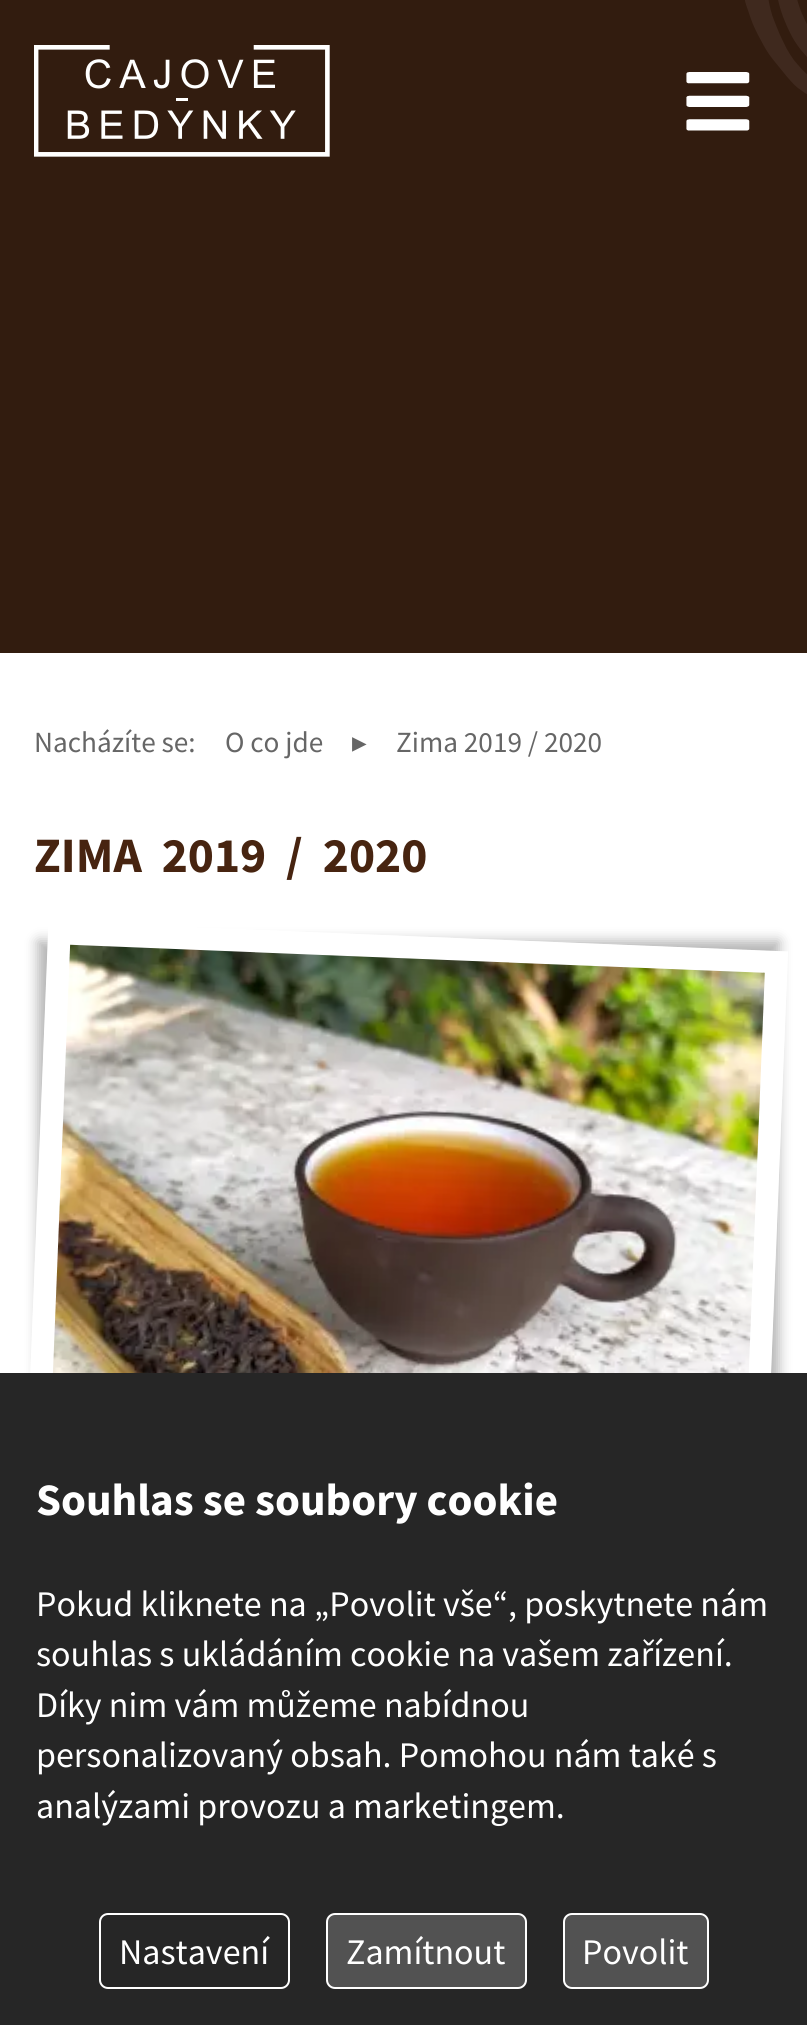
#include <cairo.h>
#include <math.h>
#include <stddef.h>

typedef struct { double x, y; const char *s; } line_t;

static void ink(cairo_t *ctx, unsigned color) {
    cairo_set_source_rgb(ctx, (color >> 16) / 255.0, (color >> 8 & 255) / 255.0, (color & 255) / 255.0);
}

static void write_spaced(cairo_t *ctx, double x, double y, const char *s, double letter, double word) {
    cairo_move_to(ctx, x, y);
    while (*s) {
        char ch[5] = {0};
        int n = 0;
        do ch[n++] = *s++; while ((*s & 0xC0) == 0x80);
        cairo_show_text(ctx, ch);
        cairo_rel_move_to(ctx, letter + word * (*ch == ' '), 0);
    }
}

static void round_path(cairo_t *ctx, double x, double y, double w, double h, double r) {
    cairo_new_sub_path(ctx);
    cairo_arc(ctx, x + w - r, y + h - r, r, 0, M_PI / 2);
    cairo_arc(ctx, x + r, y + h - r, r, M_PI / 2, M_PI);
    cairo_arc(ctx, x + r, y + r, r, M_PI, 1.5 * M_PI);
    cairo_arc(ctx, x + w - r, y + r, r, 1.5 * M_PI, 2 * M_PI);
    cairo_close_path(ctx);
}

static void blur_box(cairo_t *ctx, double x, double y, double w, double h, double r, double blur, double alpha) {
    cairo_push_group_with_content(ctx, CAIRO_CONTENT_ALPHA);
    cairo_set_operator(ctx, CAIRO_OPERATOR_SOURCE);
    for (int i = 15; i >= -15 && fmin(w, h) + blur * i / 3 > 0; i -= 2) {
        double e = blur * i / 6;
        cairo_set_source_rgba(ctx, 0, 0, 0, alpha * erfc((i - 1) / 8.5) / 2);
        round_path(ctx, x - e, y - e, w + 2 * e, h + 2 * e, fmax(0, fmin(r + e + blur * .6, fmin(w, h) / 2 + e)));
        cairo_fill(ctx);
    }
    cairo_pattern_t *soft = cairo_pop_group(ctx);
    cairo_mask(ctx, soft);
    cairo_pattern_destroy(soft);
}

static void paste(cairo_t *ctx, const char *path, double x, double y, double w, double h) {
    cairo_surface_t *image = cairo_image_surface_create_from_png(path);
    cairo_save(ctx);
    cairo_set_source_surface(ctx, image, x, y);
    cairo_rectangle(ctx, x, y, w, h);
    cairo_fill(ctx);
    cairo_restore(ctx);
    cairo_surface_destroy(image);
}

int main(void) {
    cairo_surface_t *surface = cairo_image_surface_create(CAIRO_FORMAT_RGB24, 807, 2025);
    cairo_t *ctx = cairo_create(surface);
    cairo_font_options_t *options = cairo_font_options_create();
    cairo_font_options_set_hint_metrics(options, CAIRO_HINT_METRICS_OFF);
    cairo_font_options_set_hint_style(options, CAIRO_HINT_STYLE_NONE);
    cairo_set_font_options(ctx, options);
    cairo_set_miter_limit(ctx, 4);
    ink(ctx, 0xFFFFFF);
    cairo_paint(ctx);
    ink(ctx, 0x321C0F);
    cairo_rectangle(ctx, 0, 0, 807, 653);
    cairo_fill(ctx);
    paste(ctx, "media/1.png", 745, 0, 62, 94);
    paste(ctx, "media/2.png", 34, 45, 296, 112);
    paste(ctx, "media/3.png", 686, 72, 64, 59);
    cairo_select_font_face(ctx, "Source Sans Pro", CAIRO_FONT_SLANT_NORMAL, CAIRO_FONT_WEIGHT_NORMAL);
    cairo_set_font_size(ctx, 29.25);
    ink(ctx, 0x666666);
    cairo_move_to(ctx, 34, 752);
    cairo_show_text(ctx, "Nacházíte se:");
    cairo_move_to(ctx, 225, 752);
    cairo_show_text(ctx, "O co jde");
    cairo_select_font_face(ctx, "DejaVu Sans", CAIRO_FONT_SLANT_NORMAL, CAIRO_FONT_WEIGHT_NORMAL);
    cairo_move_to(ctx, 352, 752);
    cairo_show_text(ctx, "▸");
    cairo_select_font_face(ctx, "Source Sans Pro", CAIRO_FONT_SLANT_NORMAL, CAIRO_FONT_WEIGHT_NORMAL);
    cairo_move_to(ctx, 396, 752);
    cairo_show_text(ctx, "Zima 2019 / 2020");
    cairo_select_font_face(ctx, "Source Sans Pro", CAIRO_FONT_SLANT_NORMAL, CAIRO_FONT_WEIGHT_BOLD);
    cairo_set_font_size(ctx, 49.5);
    ink(ctx, 0x472410);
    write_spaced(ctx, 34, 872, "ZIMA 2019 / 2020", 0, 10);
    cairo_save(ctx);
    cairo_set_fill_rule(ctx, CAIRO_FILL_RULE_EVEN_ODD);
    cairo_new_path(ctx);
    cairo_move_to(ctx, 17, 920);
    cairo_line_to(ctx, 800, 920);
    cairo_line_to(ctx, 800, 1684);
    cairo_line_to(ctx, 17, 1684);
    cairo_close_path(ctx);
    cairo_move_to(ctx, 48.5, 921.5);
    cairo_line_to(ctx, 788, 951.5);
    cairo_line_to(ctx, 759, 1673);
    cairo_line_to(ctx, 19.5, 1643.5);
    cairo_close_path(ctx);
    cairo_clip(ctx);
    ink(ctx, 0x000000);
    blur_box(ctx, 38, 941, 741, 722, 0, 6.5, 0.3);
    cairo_restore(ctx);
    paste(ctx, "media/4.png", 52, 944, 713, 429);
    ink(ctx, 0x262626);
    cairo_rectangle(ctx, 0, 1373, 807, 652);
    cairo_fill(ctx);
    cairo_set_font_size(ctx, 45);
    ink(ctx, 0xFFFFFF);
    cairo_move_to(ctx, 36, 1515);
    cairo_show_text(ctx, "Souhlas se soubory cookie");
    cairo_select_font_face(ctx, "Source Sans Pro", CAIRO_FONT_SLANT_NORMAL, CAIRO_FONT_WEIGHT_NORMAL);
    cairo_set_font_size(ctx, 36);
    {
        static const line_t items[] = {
            {36, 1616, "Pokud kliknete na „Povolit vše“, poskytnete nám"},
            {36, 1666, "souhlas s ukládáním cookie na vašem zařízení."},
            {36, 1717, "Díky nim vám můžeme nabídnou"},
            {36, 1767, "personalizovaný obsah. Pomohou nám také s"},
            {36, 1818, "analýzami provozu a marketingem."},
        };
        for (size_t i = 0; i < sizeof items / sizeof *items; i++) {
            cairo_move_to(ctx, items[i].x, items[i].y);
            cairo_show_text(ctx, items[i].s);
        }
    }
    round_path(ctx, 100, 1914, 189, 74, 8);
    cairo_stroke(ctx);
    cairo_move_to(ctx, 119, 1964);
    cairo_show_text(ctx, "Nastavení");
    ink(ctx, 0x525252);
    round_path(ctx, 327, 1914, 199, 74, 8);
    cairo_fill_preserve(ctx);
    ink(ctx, 0xFFFFFF);
    cairo_stroke(ctx);
    cairo_move_to(ctx, 346, 1964);
    cairo_show_text(ctx, "Zamítnout");
    ink(ctx, 0x525252);
    round_path(ctx, 564, 1914, 144, 74, 8);
    cairo_fill_preserve(ctx);
    ink(ctx, 0xFFFFFF);
    cairo_stroke(ctx);
    cairo_move_to(ctx, 582, 1964);
    cairo_show_text(ctx, "Povolit");
    cairo_surface_write_to_png(surface, "image.png");
    cairo_font_options_destroy(options);
    cairo_destroy(ctx);
    cairo_surface_destroy(surface);
    return 0;
}
